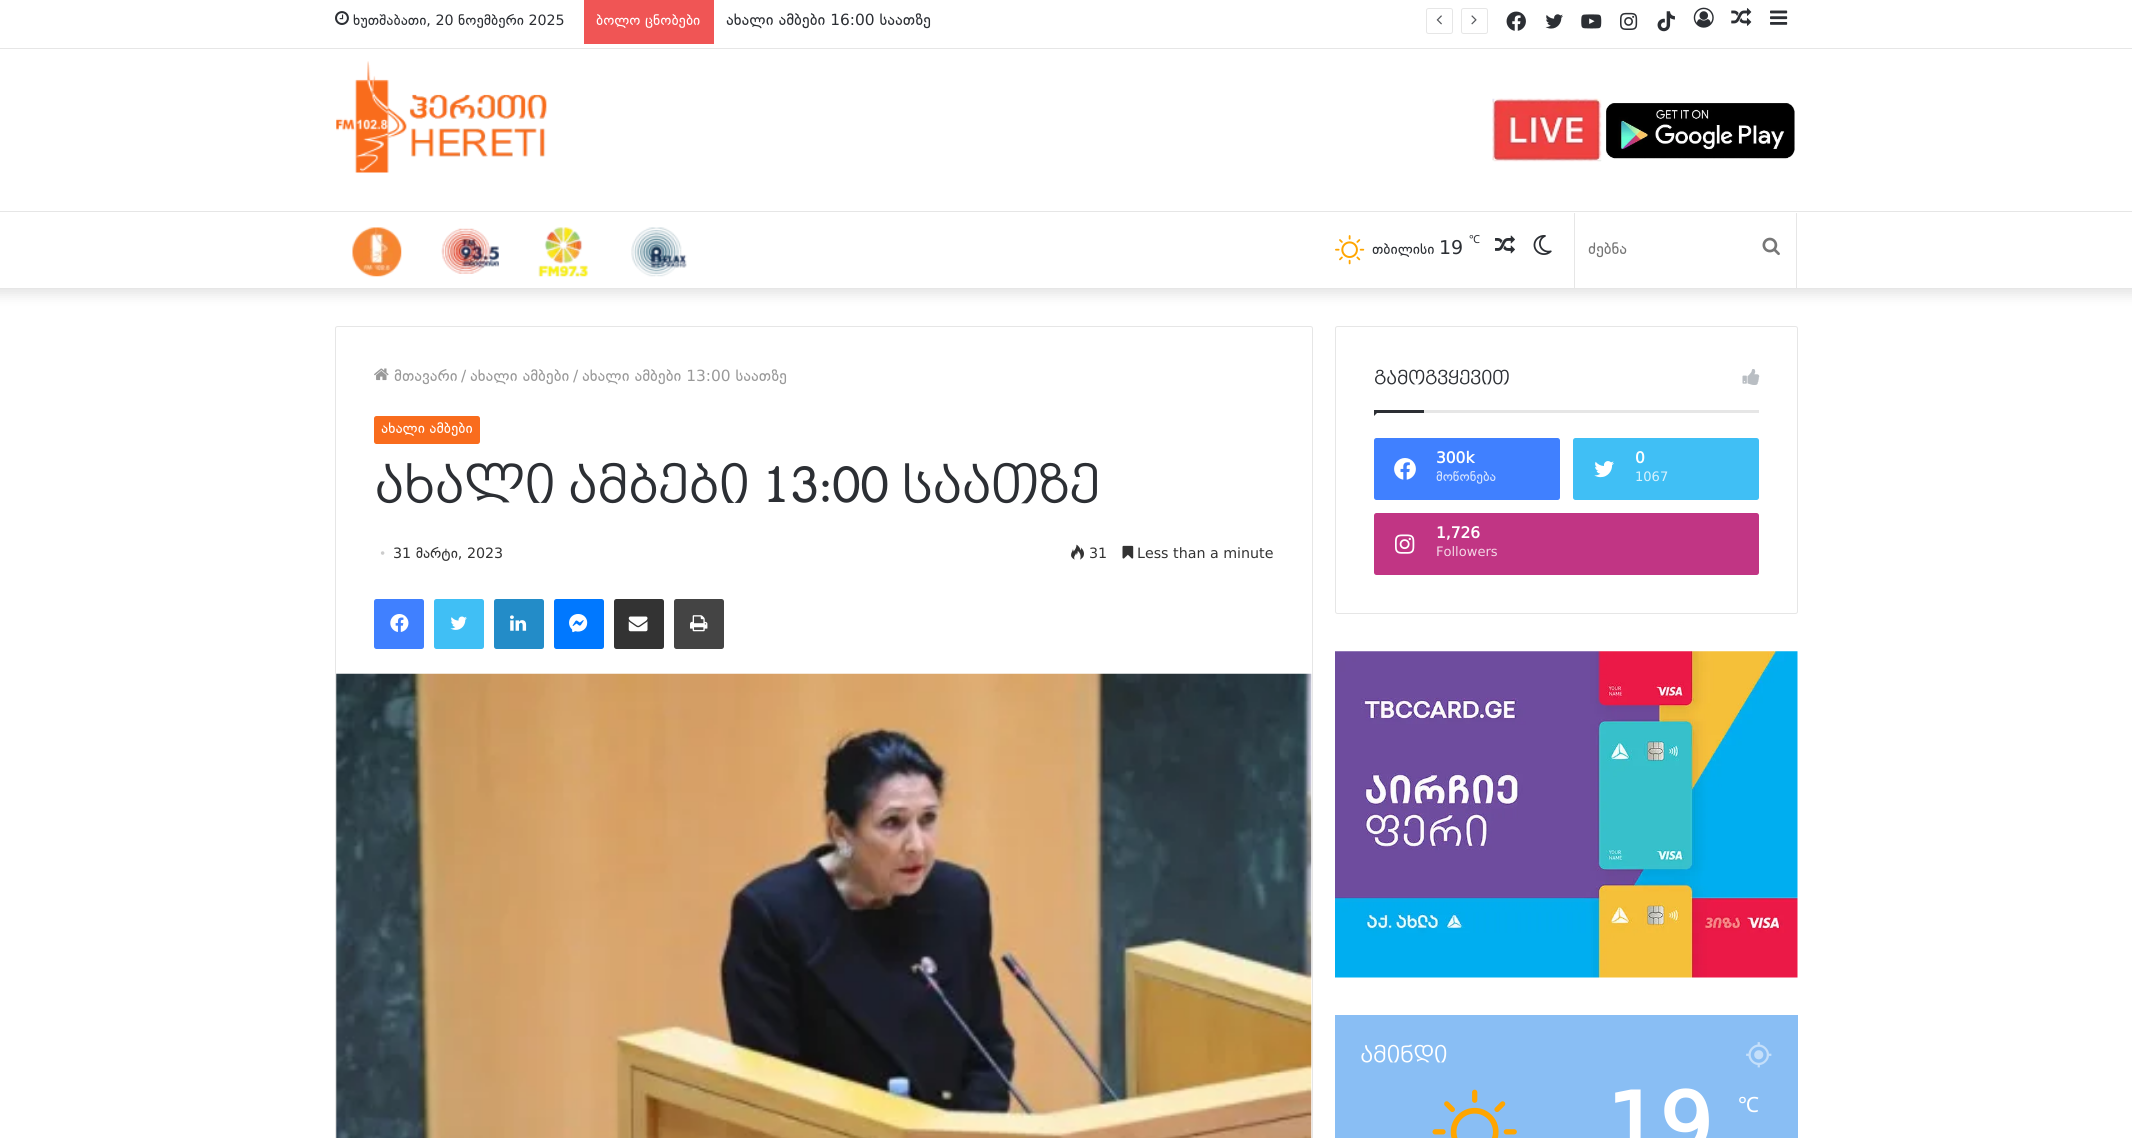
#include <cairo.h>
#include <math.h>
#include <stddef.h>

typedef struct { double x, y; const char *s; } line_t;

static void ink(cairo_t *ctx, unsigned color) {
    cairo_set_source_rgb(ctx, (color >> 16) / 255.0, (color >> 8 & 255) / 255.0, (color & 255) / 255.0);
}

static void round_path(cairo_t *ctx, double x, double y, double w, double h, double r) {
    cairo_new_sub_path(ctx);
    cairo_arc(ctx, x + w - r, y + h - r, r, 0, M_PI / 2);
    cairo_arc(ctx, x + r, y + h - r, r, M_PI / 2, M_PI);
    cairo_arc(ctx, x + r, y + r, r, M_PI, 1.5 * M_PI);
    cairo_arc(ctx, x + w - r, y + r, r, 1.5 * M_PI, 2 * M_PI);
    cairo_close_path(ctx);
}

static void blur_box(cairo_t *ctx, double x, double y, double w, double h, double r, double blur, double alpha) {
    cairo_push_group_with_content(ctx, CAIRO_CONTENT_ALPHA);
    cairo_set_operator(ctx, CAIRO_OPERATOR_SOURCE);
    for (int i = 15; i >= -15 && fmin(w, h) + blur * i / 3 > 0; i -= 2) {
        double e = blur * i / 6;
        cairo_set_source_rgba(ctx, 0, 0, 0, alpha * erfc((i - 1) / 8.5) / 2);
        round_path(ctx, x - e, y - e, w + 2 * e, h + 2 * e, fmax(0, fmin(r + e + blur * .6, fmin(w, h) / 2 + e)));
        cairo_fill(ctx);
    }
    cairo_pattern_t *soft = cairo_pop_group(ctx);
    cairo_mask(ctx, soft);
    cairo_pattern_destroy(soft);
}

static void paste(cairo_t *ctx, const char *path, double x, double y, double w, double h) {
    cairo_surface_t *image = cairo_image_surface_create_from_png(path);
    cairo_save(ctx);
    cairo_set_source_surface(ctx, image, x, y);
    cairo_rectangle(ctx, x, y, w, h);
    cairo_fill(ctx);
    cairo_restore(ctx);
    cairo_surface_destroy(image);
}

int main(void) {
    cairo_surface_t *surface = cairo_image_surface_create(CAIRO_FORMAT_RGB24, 2132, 1138);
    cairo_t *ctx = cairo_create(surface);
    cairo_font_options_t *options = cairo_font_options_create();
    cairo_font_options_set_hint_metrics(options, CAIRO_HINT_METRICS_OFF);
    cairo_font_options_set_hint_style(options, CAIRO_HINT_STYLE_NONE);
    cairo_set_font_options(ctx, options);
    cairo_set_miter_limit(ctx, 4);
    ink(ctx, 0xFFFFFF);
    cairo_paint(ctx);
    ink(ctx, 0x000000);
    blur_box(ctx, -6, -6, 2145, 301, 0, 6, 0.1);
    ink(ctx, 0xFFFFFF);
    cairo_rectangle(ctx, 0, 0, 2132, 288);
    cairo_fill(ctx);
    ink(ctx, 0xE6E6E6);
    cairo_rectangle(ctx, 0, 48, 2132, 1);
    cairo_fill(ctx);
    paste(ctx, "media/1.png", 335, 11, 14, 14);
    cairo_select_font_face(ctx, "DejaVu Sans", CAIRO_FONT_SLANT_NORMAL, CAIRO_FONT_WEIGHT_NORMAL);
    cairo_set_font_size(ctx, 15);
    ink(ctx, 0x2C2F34);
    cairo_move_to(ctx, 353, 25);
    cairo_show_text(ctx, "ხუთშაბათი, 20 ნოემბერი 2025");
    ink(ctx, 0xF05555);
    cairo_rectangle(ctx, 584, 0, 130, 44);
    cairo_fill(ctx);
    ink(ctx, 0xFFFFFF);
    cairo_move_to(ctx, 596, 25);
    cairo_show_text(ctx, "ბოლო ცნობები");
    cairo_set_font_size(ctx, 16.25);
    ink(ctx, 0x2C2F34);
    cairo_move_to(ctx, 726, 25);
    cairo_show_text(ctx, "ახალი ამბები 16:00 საათზე");
    round_path(ctx, 1426.5, 8.5, 26, 25, 2);
    ink(ctx, 0xE6E6E6);
    cairo_set_line_width(ctx, 1);
    cairo_stroke(ctx);
    paste(ctx, "media/2.png", 1436, 15, 6, 10);
    round_path(ctx, 1461.5, 8.5, 26, 25, 2);
    cairo_stroke(ctx);
    paste(ctx, "media/3.png", 1471, 15, 6, 10);
    paste(ctx, "media/4.png", 1506, 11, 20, 20);
    paste(ctx, "media/5.png", 1545, 14, 18, 15);
    paste(ctx, "media/6.png", 1581, 14, 21, 15);
    paste(ctx, "media/7.png", 1620, 12, 18, 18);
    paste(ctx, "media/8.png", 1657, 11, 18, 21);
    paste(ctx, "media/9.png", 1693, 7, 21, 21);
    paste(ctx, "media/10.png", 1731, 8, 21, 18);
    paste(ctx, "media/11.png", 1770, 10, 18, 15);
    paste(ctx, "media/12.png", 336, 61, 211, 112);
    paste(ctx, "media/13.png", 1492, 98, 110, 64);
    paste(ctx, "media/14.png", 1606, 103, 189, 56);
    cairo_rectangle(ctx, 0, 211, 2132, 1);
    cairo_fill(ctx);
    cairo_rectangle(ctx, 0, 288, 2132, 1);
    cairo_fill(ctx);
    paste(ctx, "media/15.png", 352, 227, 50, 50);
    paste(ctx, "media/16.png", 441, 228, 58, 46);
    paste(ctx, "media/17.png", 538, 227, 51, 50);
    paste(ctx, "media/18.png", 631, 227, 56, 50);
    paste(ctx, "media/19.png", 1335, 235, 30, 30);
    cairo_set_font_size(ctx, 15);
    ink(ctx, 0x2C2F34);
    cairo_move_to(ctx, 1372, 254);
    cairo_show_text(ctx, "თბილისი");
    cairo_set_font_size(ctx, 20);
    cairo_move_to(ctx, 1439, 254);
    cairo_show_text(ctx, "19");
    cairo_select_font_face(ctx, "Noto Sans", CAIRO_FONT_SLANT_NORMAL, CAIRO_FONT_WEIGHT_NORMAL);
    cairo_set_font_size(ctx, 11);
    cairo_move_to(ctx, 1469, 243);
    cairo_show_text(ctx, "℃");
    paste(ctx, "media/20.png", 1495, 235, 20, 19);
    paste(ctx, "media/21.png", 1533, 235, 19, 20);
    ink(ctx, 0xE6E6E6);
    cairo_rectangle(ctx, 1796, 213, 1, 75);
    cairo_fill(ctx);
    cairo_rectangle(ctx, 1574, 213, 1, 75);
    cairo_fill(ctx);
    cairo_select_font_face(ctx, "DejaVu Sans", CAIRO_FONT_SLANT_NORMAL, CAIRO_FONT_WEIGHT_NORMAL);
    cairo_set_font_size(ctx, 16.25);
    ink(ctx, 0x757575);
    cairo_move_to(ctx, 1588, 254);
    cairo_show_text(ctx, "ძებნა");
    paste(ctx, "media/22.png", 1762, 237, 18, 19);
    round_path(ctx, 335.5, 326.5, 977, 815, 2);
    ink(ctx, 0xE6E6E6);
    cairo_stroke(ctx);
    paste(ctx, "media/23.png", 374, 368, 15, 13);
    ink(ctx, 0x999999);
    {
        static const line_t items[] = {
            {394, 381, "მთავარი"},
            {461, 381, "/"},
            {470, 381, "ახალი ამბები"},
            {573, 381, "/"},
            {582, 381, "ახალი ამბები 13:00 საათზე"},
        };
        for (size_t i = 0; i < sizeof items / sizeof *items; i++) {
            cairo_move_to(ctx, items[i].x, items[i].y);
            cairo_show_text(ctx, items[i].s);
        }
    }
    ink(ctx, 0xF96C1D);
    round_path(ctx, 374, 416, 106, 28, 2.5);
    cairo_fill(ctx);
    cairo_set_font_size(ctx, 15);
    ink(ctx, 0xFFFFFF);
    cairo_move_to(ctx, 381, 433);
    cairo_show_text(ctx, "ახალი ამბები");
    cairo_select_font_face(ctx, "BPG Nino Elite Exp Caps", CAIRO_FONT_SLANT_NORMAL, CAIRO_FONT_WEIGHT_BOLD);
    cairo_set_font_size(ctx, 51.25);
    ink(ctx, 0x2C2F34);
    cairo_move_to(ctx, 374, 502);
    cairo_show_text(ctx, "ახალი ამბები 13:00 საათზე");
    cairo_select_font_face(ctx, "Liberation Serif", CAIRO_FONT_SLANT_NORMAL, CAIRO_FONT_WEIGHT_NORMAL);
    cairo_set_font_size(ctx, 15);
    ink(ctx, 0xCCCCCC);
    cairo_move_to(ctx, 380, 558);
    cairo_show_text(ctx, "•");
    cairo_select_font_face(ctx, "DejaVu Sans", CAIRO_FONT_SLANT_NORMAL, CAIRO_FONT_WEIGHT_NORMAL);
    ink(ctx, 0x333333);
    cairo_move_to(ctx, 393, 558);
    cairo_show_text(ctx, "31 მარტი, 2023");
    paste(ctx, "media/24.png", 1071, 544, 13, 16);
    cairo_move_to(ctx, 1089, 558);
    cairo_show_text(ctx, "31");
    paste(ctx, "media/25.png", 1122, 545, 12, 14);
    cairo_move_to(ctx, 1137, 558);
    cairo_show_text(ctx, "Less than a minute");
    ink(ctx, 0x4080FF);
    round_path(ctx, 374, 599, 50, 50, 2.5);
    cairo_fill(ctx);
    paste(ctx, "media/26.png", 390, 614, 19, 18);
    ink(ctx, 0x40BFF5);
    round_path(ctx, 434, 599, 50, 50, 2.5);
    cairo_fill(ctx);
    paste(ctx, "media/27.png", 450, 616, 17, 14);
    ink(ctx, 0x238CC8);
    round_path(ctx, 494, 599, 50, 50, 2.5);
    cairo_fill(ctx);
    paste(ctx, "media/28.png", 510, 615, 17, 16);
    ink(ctx, 0x0078FF);
    round_path(ctx, 554, 599, 50, 50, 2.5);
    cairo_fill(ctx);
    paste(ctx, "media/29.png", 569, 614, 19, 19);
    ink(ctx, 0x333333);
    round_path(ctx, 614, 599, 50, 50, 2.5);
    cairo_fill(ctx);
    paste(ctx, "media/30.png", 628, 616, 20, 16);
    ink(ctx, 0x444444);
    round_path(ctx, 674, 599, 50, 50, 2.5);
    cairo_fill(ctx);
    paste(ctx, "media/31.png", 690, 615, 18, 17);
    paste(ctx, "media/32.png", 336, 673, 976, 465);
    round_path(ctx, 1335.5, 326.5, 462, 287, 2);
    ink(ctx, 0xE6E6E6);
    cairo_stroke(ctx);
    cairo_rectangle(ctx, 1424, 410, 335, 3);
    cairo_fill(ctx);
    cairo_select_font_face(ctx, "BPG Nino Elite Exp Caps", CAIRO_FONT_SLANT_NORMAL, CAIRO_FONT_WEIGHT_BOLD);
    cairo_set_font_size(ctx, 18.75);
    ink(ctx, 0x2C2F34);
    cairo_move_to(ctx, 1374, 384);
    cairo_show_text(ctx, "გამოგვყევით");
    paste(ctx, "media/33.png", 1742, 369, 18, 16);
    cairo_new_path(ctx);
    cairo_move_to(ctx, 1374, 410);
    cairo_line_to(ctx, 1380, 410);
    cairo_line_to(ctx, 1374, 416);
    cairo_close_path(ctx);
    cairo_fill(ctx);
    cairo_rectangle(ctx, 1374, 410, 50, 3);
    cairo_fill(ctx);
    ink(ctx, 0x4080FF);
    round_path(ctx, 1374, 438, 186, 62, 2.5);
    cairo_fill(ctx);
    paste(ctx, "media/34.png", 1394, 458, 22, 22);
    cairo_select_font_face(ctx, "DejaVu Sans", CAIRO_FONT_SLANT_NORMAL, CAIRO_FONT_WEIGHT_BOLD);
    cairo_set_font_size(ctx, 16.25);
    ink(ctx, 0xFFFFFF);
    cairo_move_to(ctx, 1436, 463);
    cairo_show_text(ctx, "300k");
    cairo_select_font_face(ctx, "DejaVu Sans", CAIRO_FONT_SLANT_NORMAL, CAIRO_FONT_WEIGHT_NORMAL);
    cairo_set_font_size(ctx, 13.75);
    ink(ctx, 0xD9E6FF);
    cairo_move_to(ctx, 1436, 481);
    cairo_show_text(ctx, "მოწონება");
    ink(ctx, 0x40BFF5);
    round_path(ctx, 1573, 438, 186, 62, 2.5);
    cairo_fill(ctx);
    paste(ctx, "media/35.png", 1594, 461, 20, 17);
    cairo_select_font_face(ctx, "DejaVu Sans", CAIRO_FONT_SLANT_NORMAL, CAIRO_FONT_WEIGHT_BOLD);
    cairo_set_font_size(ctx, 16.25);
    ink(ctx, 0xFFFFFF);
    cairo_move_to(ctx, 1635, 463);
    cairo_show_text(ctx, "0");
    cairo_select_font_face(ctx, "DejaVu Sans", CAIRO_FONT_SLANT_NORMAL, CAIRO_FONT_WEIGHT_NORMAL);
    cairo_set_font_size(ctx, 13.75);
    ink(ctx, 0xD9F2FD);
    cairo_move_to(ctx, 1635, 481);
    cairo_show_text(ctx, "1067");
    ink(ctx, 0xC13584);
    round_path(ctx, 1374, 513, 385, 62, 2.5);
    cairo_fill(ctx);
    paste(ctx, "media/36.png", 1395, 534, 20, 20);
    cairo_select_font_face(ctx, "DejaVu Sans", CAIRO_FONT_SLANT_NORMAL, CAIRO_FONT_WEIGHT_BOLD);
    cairo_set_font_size(ctx, 16.25);
    ink(ctx, 0xFFFFFF);
    cairo_move_to(ctx, 1436, 538);
    cairo_show_text(ctx, "1,726");
    cairo_select_font_face(ctx, "DejaVu Sans", CAIRO_FONT_SLANT_NORMAL, CAIRO_FONT_WEIGHT_NORMAL);
    cairo_set_font_size(ctx, 13.75);
    ink(ctx, 0xF3D7E6);
    cairo_move_to(ctx, 1436, 556);
    cairo_show_text(ctx, "Followers");
    paste(ctx, "media/37.png", 1335, 651, 463, 327);
    ink(ctx, 0x89BEF4);
    cairo_rectangle(ctx, 1335, 1015, 463, 123);
    cairo_fill(ctx);
    cairo_select_font_face(ctx, "BPG Nino Elite Exp Caps", CAIRO_FONT_SLANT_NORMAL, CAIRO_FONT_WEIGHT_BOLD);
    cairo_set_font_size(ctx, 22.5);
    ink(ctx, 0xFFFFFF);
    cairo_move_to(ctx, 1360, 1062);
    cairo_show_text(ctx, "ამინდი");
    paste(ctx, "media/38.png", 1746, 1042, 26, 26);
    paste(ctx, "media/39.png", 1432, 1089, 85, 49);
    cairo_select_font_face(ctx, "DejaVu Sans", CAIRO_FONT_SLANT_NORMAL, CAIRO_FONT_WEIGHT_BOLD);
    cairo_set_font_size(ctx, 88);
    cairo_move_to(ctx, 1606, 1153);
    cairo_show_text(ctx, "19");
    cairo_select_font_face(ctx, "Noto Sans", CAIRO_FONT_SLANT_NORMAL, CAIRO_FONT_WEIGHT_NORMAL);
    cairo_set_font_size(ctx, 21);
    cairo_move_to(ctx, 1738, 1112);
    cairo_show_text(ctx, "℃");
    cairo_surface_write_to_png(surface, "image.png");
    cairo_font_options_destroy(options);
    cairo_destroy(ctx);
    cairo_surface_destroy(surface);
    return 0;
}
